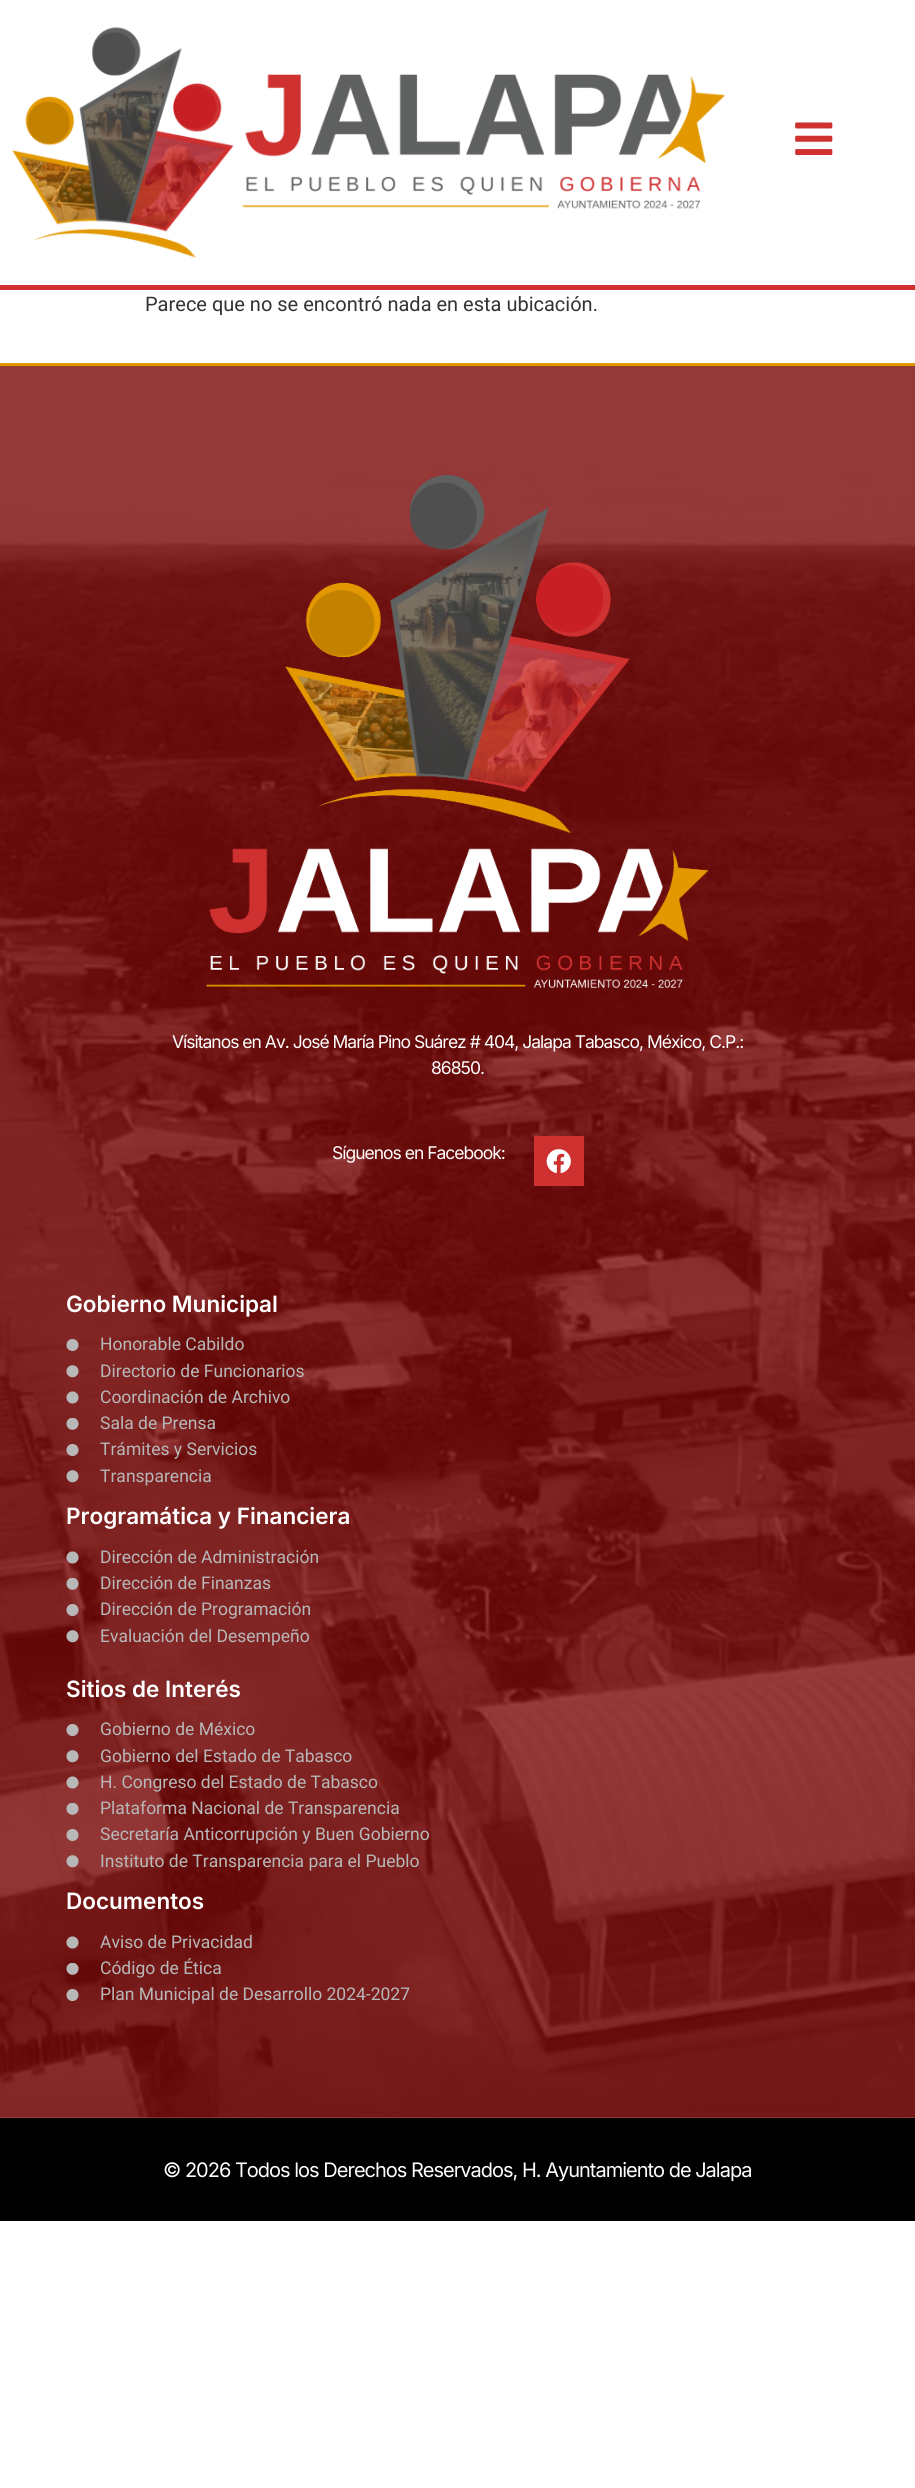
#include <cairo.h>
#include <math.h>
#include <stddef.h>

typedef struct { double x, y; const char *s; } line_t;

static void ink(cairo_t *ctx, unsigned color) {
    cairo_set_source_rgb(ctx, (color >> 16) / 255.0, (color >> 8 & 255) / 255.0, (color & 255) / 255.0);
}

static void write_spaced(cairo_t *ctx, double x, double y, const char *s, double letter, double word) {
    cairo_move_to(ctx, x, y);
    while (*s) {
        char ch[5] = {0};
        int n = 0;
        do ch[n++] = *s++; while ((*s & 0xC0) == 0x80);
        cairo_show_text(ctx, ch);
        cairo_rel_move_to(ctx, letter + word * (*ch == ' '), 0);
    }
}

static void paste(cairo_t *ctx, const char *path, double x, double y, double w, double h) {
    cairo_surface_t *image = cairo_image_surface_create_from_png(path);
    cairo_save(ctx);
    cairo_set_source_surface(ctx, image, x, y);
    cairo_rectangle(ctx, x, y, w, h);
    cairo_fill(ctx);
    cairo_restore(ctx);
    cairo_surface_destroy(image);
}

int main(void) {
    cairo_surface_t *surface = cairo_image_surface_create(CAIRO_FORMAT_RGB24, 915, 2488);
    cairo_t *ctx = cairo_create(surface);
    cairo_font_options_t *options = cairo_font_options_create();
    cairo_font_options_set_hint_metrics(options, CAIRO_HINT_METRICS_OFF);
    cairo_font_options_set_hint_style(options, CAIRO_HINT_STYLE_NONE);
    cairo_set_font_options(ctx, options);
    cairo_set_miter_limit(ctx, 4);
    ink(ctx, 0xFFFFFF);
    cairo_paint(ctx);
    ink(ctx, 0xAC4F4F);
    cairo_rectangle(ctx, 0, 2117, 915, 1);
    cairo_fill(ctx);
    ink(ctx, 0xCF3030);
    cairo_rectangle(ctx, 0, 285, 915, 5);
    cairo_fill(ctx);
    paste(ctx, "media/1.png", 12, 27, 713, 231);
    paste(ctx, "media/2.png", 795, 122, 38, 33);
    cairo_select_font_face(ctx, "Roboto", CAIRO_FONT_SLANT_NORMAL, CAIRO_FONT_WEIGHT_NORMAL);
    cairo_set_font_size(ctx, 20);
    ink(ctx, 0x333333);
    cairo_move_to(ctx, 145, 311);
    cairo_show_text(ctx, "Parece que no se encontró nada en esta ubicación.");
    paste(ctx, "media/3.png", 0, 366, 915, 1752);
    ink(ctx, 0xE39800);
    cairo_rectangle(ctx, 0, 363, 915, 3);
    cairo_fill(ctx);
    paste(ctx, "media/4.png", 206, 475, 503, 513);
    cairo_select_font_face(ctx, "Inter", CAIRO_FONT_SLANT_NORMAL, CAIRO_FONT_WEIGHT_NORMAL);
    cairo_set_font_size(ctx, 17.5);
    ink(ctx, 0xFFFFFF);
    {
        static const line_t items[] = {
            {172, 1048, "Vísitanos en Av. José María Pino Suárez # 404, Jalapa Tabasco, México, C.P.:"},
            {431, 1074, "86850."},
            {332, 1159, "Síguenos en Facebook:"},
        };
        for (size_t i = 0; i < sizeof items / sizeof *items; i++) {
            write_spaced(ctx, items[i].x, items[i].y, items[i].s, -1, 0);
        }
    }
    ink(ctx, 0xCF3030);
    cairo_rectangle(ctx, 534, 1136, 50, 50);
    cairo_fill(ctx);
    paste(ctx, "media/5.png", 546, 1149, 25, 25);
    cairo_select_font_face(ctx, "Inter SemiBold", CAIRO_FONT_SLANT_NORMAL, CAIRO_FONT_WEIGHT_NORMAL);
    cairo_set_font_size(ctx, 22.5);
    ink(ctx, 0xFFFFFF);
    cairo_move_to(ctx, 66, 1312);
    cairo_show_text(ctx, "Gobierno Municipal");
    paste(ctx, "media/6.png", 66, 1339, 13, 12);
    cairo_select_font_face(ctx, "Roboto", CAIRO_FONT_SLANT_NORMAL, CAIRO_FONT_WEIGHT_NORMAL);
    cairo_set_font_size(ctx, 17.5);
    ink(ctx, 0xB8B8B8);
    cairo_move_to(ctx, 100, 1350);
    cairo_show_text(ctx, "Honorable Cabildo");
    paste(ctx, "media/7.png", 66, 1365, 13, 13);
    cairo_move_to(ctx, 100, 1377);
    cairo_show_text(ctx, "Directorio de Funcionarios");
    paste(ctx, "media/8.png", 66, 1391, 13, 13);
    cairo_move_to(ctx, 100, 1403);
    cairo_show_text(ctx, "Coordinación de Archivo");
    paste(ctx, "media/9.png", 66, 1418, 13, 12);
    cairo_move_to(ctx, 100, 1429);
    cairo_show_text(ctx, "Sala de Prensa");
    paste(ctx, "media/10.png", 66, 1444, 13, 12);
    cairo_move_to(ctx, 100, 1455);
    cairo_show_text(ctx, "Trámites y Servicios");
    paste(ctx, "media/11.png", 66, 1470, 13, 13);
    cairo_move_to(ctx, 100, 1482);
    cairo_show_text(ctx, "Transparencia");
    cairo_select_font_face(ctx, "Inter SemiBold", CAIRO_FONT_SLANT_NORMAL, CAIRO_FONT_WEIGHT_NORMAL);
    cairo_set_font_size(ctx, 22.5);
    ink(ctx, 0xFFFFFF);
    cairo_move_to(ctx, 66, 1524);
    cairo_show_text(ctx, "Programática y Financiera");
    paste(ctx, "media/12.png", 66, 1551, 13, 13);
    cairo_select_font_face(ctx, "Roboto", CAIRO_FONT_SLANT_NORMAL, CAIRO_FONT_WEIGHT_NORMAL);
    cairo_set_font_size(ctx, 17.5);
    ink(ctx, 0xB8B8B8);
    cairo_move_to(ctx, 100, 1563);
    cairo_show_text(ctx, "Dirección de Administración");
    paste(ctx, "media/13.png", 66, 1578, 13, 12);
    cairo_move_to(ctx, 100, 1589);
    cairo_show_text(ctx, "Dirección de Finanzas");
    paste(ctx, "media/14.png", 66, 1604, 13, 12);
    cairo_move_to(ctx, 100, 1615);
    cairo_show_text(ctx, "Dirección de Programación");
    paste(ctx, "media/15.png", 66, 1630, 13, 13);
    cairo_move_to(ctx, 100, 1642);
    cairo_show_text(ctx, "Evaluación del Desempeño");
    cairo_select_font_face(ctx, "Inter SemiBold", CAIRO_FONT_SLANT_NORMAL, CAIRO_FONT_WEIGHT_NORMAL);
    cairo_set_font_size(ctx, 22.5);
    ink(ctx, 0xFFFFFF);
    cairo_move_to(ctx, 66, 1697);
    cairo_show_text(ctx, "Sitios de Interés");
    paste(ctx, "media/16.png", 66, 1724, 13, 12);
    cairo_select_font_face(ctx, "Roboto", CAIRO_FONT_SLANT_NORMAL, CAIRO_FONT_WEIGHT_NORMAL);
    cairo_set_font_size(ctx, 17.5);
    ink(ctx, 0xB8B8B8);
    cairo_move_to(ctx, 100, 1735);
    cairo_show_text(ctx, "Gobierno de México");
    paste(ctx, "media/17.png", 66, 1750, 13, 13);
    cairo_move_to(ctx, 100, 1762);
    cairo_show_text(ctx, "Gobierno del Estado de Tabasco");
    paste(ctx, "media/18.png", 66, 1776, 13, 13);
    cairo_move_to(ctx, 100, 1788);
    cairo_show_text(ctx, "H. Congreso del Estado de Tabasco");
    paste(ctx, "media/19.png", 66, 1803, 13, 12);
    cairo_move_to(ctx, 100, 1814);
    cairo_show_text(ctx, "Plataforma Nacional de Transparencia");
    paste(ctx, "media/20.png", 66, 1829, 13, 12);
    cairo_move_to(ctx, 100, 1840);
    cairo_show_text(ctx, "Secretaría Anticorrupción y Buen Gobierno");
    paste(ctx, "media/21.png", 66, 1855, 13, 13);
    cairo_move_to(ctx, 100, 1867);
    cairo_show_text(ctx, "Instituto de Transparencia para el Pueblo");
    cairo_select_font_face(ctx, "Inter SemiBold", CAIRO_FONT_SLANT_NORMAL, CAIRO_FONT_WEIGHT_NORMAL);
    cairo_set_font_size(ctx, 22.5);
    ink(ctx, 0xFFFFFF);
    cairo_move_to(ctx, 66, 1909);
    cairo_show_text(ctx, "Documentos");
    paste(ctx, "media/22.png", 66, 1936, 13, 13);
    cairo_select_font_face(ctx, "Roboto", CAIRO_FONT_SLANT_NORMAL, CAIRO_FONT_WEIGHT_NORMAL);
    cairo_set_font_size(ctx, 17.5);
    ink(ctx, 0xB8B8B8);
    cairo_move_to(ctx, 100, 1948);
    cairo_show_text(ctx, "Aviso de Privacidad");
    paste(ctx, "media/23.png", 66, 1963, 13, 12);
    cairo_move_to(ctx, 100, 1974);
    cairo_show_text(ctx, "Código de Ética");
    paste(ctx, "media/24.png", 66, 1989, 13, 12);
    cairo_move_to(ctx, 100, 2000);
    cairo_show_text(ctx, "Plan Municipal de Desarrollo 2024-2027");
    ink(ctx, 0x000000);
    cairo_rectangle(ctx, 0, 2118, 915, 103);
    cairo_fill(ctx);
    cairo_select_font_face(ctx, "Inter", CAIRO_FONT_SLANT_NORMAL, CAIRO_FONT_WEIGHT_NORMAL);
    cairo_set_font_size(ctx, 20);
    ink(ctx, 0xFFFFFF);
    write_spaced(ctx, 163, 2177, "© 2026 Todos los Derechos Reservados, H. Ayuntamiento de Jalapa", -1, 0);
    cairo_surface_write_to_png(surface, "image.png");
    cairo_font_options_destroy(options);
    cairo_destroy(ctx);
    cairo_surface_destroy(surface);
    return 0;
}
